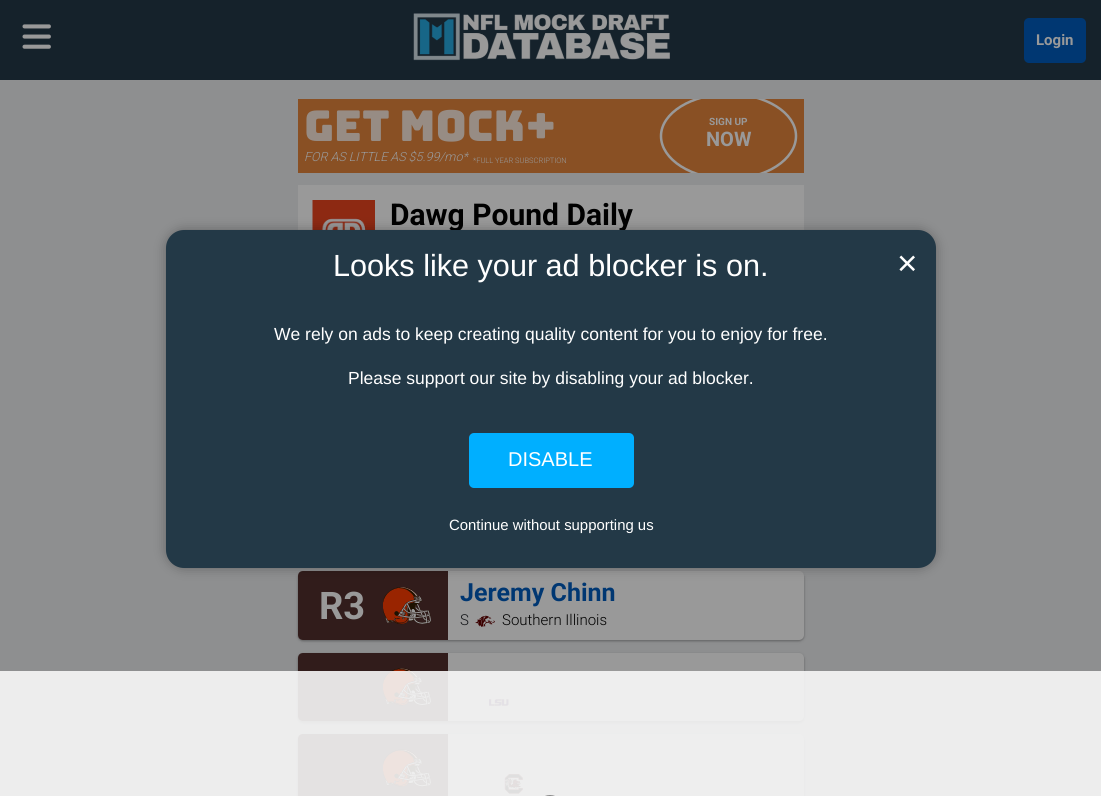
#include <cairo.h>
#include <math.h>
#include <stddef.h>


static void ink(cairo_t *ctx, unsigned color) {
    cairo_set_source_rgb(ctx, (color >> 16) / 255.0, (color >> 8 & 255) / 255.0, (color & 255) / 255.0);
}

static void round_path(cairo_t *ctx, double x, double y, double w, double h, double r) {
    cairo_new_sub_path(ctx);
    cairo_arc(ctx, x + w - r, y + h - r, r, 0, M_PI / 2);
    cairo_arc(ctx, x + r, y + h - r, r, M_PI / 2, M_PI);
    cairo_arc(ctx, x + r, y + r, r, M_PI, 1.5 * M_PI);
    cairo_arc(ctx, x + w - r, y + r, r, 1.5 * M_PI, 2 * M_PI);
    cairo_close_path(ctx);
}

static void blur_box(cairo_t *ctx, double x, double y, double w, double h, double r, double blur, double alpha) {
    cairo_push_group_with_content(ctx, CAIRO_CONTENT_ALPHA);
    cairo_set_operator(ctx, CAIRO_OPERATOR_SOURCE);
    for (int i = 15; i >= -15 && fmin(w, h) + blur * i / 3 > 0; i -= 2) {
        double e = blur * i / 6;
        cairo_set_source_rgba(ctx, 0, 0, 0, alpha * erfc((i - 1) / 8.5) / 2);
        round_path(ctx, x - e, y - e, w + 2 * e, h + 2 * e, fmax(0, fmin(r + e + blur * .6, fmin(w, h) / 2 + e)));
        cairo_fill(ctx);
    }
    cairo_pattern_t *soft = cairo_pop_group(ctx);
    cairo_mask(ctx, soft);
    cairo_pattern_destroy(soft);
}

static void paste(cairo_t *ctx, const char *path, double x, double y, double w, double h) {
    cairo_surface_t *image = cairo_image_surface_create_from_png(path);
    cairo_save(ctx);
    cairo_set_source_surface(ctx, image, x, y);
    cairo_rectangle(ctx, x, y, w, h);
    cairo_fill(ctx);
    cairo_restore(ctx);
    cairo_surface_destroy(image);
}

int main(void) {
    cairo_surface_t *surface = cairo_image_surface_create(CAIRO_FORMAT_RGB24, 1101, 796);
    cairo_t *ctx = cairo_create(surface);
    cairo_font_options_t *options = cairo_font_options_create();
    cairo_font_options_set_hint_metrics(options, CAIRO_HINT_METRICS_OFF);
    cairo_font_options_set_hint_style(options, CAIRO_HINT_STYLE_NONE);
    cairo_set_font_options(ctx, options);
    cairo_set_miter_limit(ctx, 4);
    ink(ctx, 0x8E8F90);
    cairo_paint(ctx);
    ink(ctx, 0x15222B);
    cairo_rectangle(ctx, 0, 0, 1101, 80);
    cairo_fill(ctx);
    paste(ctx, "media/1.png", 22, 24, 29, 25);
    paste(ctx, "media/2.png", 413, 13, 257, 48);
    ink(ctx, 0x003772);
    round_path(ctx, 1024, 18, 62, 45, 5);
    cairo_fill(ctx);
    cairo_select_font_face(ctx, "Roboto", CAIRO_FONT_SLANT_NORMAL, CAIRO_FONT_WEIGHT_BOLD);
    cairo_set_font_size(ctx, 15);
    ink(ctx, 0x999999);
    cairo_move_to(ctx, 1036, 45);
    cairo_show_text(ctx, "Login");
    ink(ctx, 0x895024);
    cairo_rectangle(ctx, 298, 99, 506, 74);
    cairo_fill(ctx);
    cairo_select_font_face(ctx, "Bungee", CAIRO_FONT_SLANT_NORMAL, CAIRO_FONT_WEIGHT_NORMAL);
    cairo_set_font_size(ctx, 42.5);
    ink(ctx, 0x978C84);
    cairo_move_to(ctx, 304, 141);
    cairo_show_text(ctx, "GET MOCK+");
    cairo_select_font_face(ctx, "Roboto Light", CAIRO_FONT_SLANT_ITALIC, CAIRO_FONT_WEIGHT_NORMAL);
    cairo_set_font_size(ctx, 12.5);
    ink(ctx, 0x999999);
    cairo_move_to(ctx, 304, 161);
    cairo_show_text(ctx, "FOR AS LITTLE AS $5.99/mo*");
    cairo_select_font_face(ctx, "Roboto Light", CAIRO_FONT_SLANT_NORMAL, CAIRO_FONT_WEIGHT_NORMAL);
    cairo_set_font_size(ctx, 7.5);
    cairo_move_to(ctx, 473, 163);
    cairo_show_text(ctx, "*FULL YEAR SUBSCRIPTION");
    cairo_save(ctx);
    cairo_rectangle(ctx, 298, 99, 506, 74);
    cairo_clip(ctx);
    cairo_new_path(ctx);
    cairo_move_to(ctx, 729, 94);
    cairo_curve_to(ctx, 766, 94, 796, 113, 796, 136);
    cairo_curve_to(ctx, 796, 159.5, 766, 179, 729, 179);
    cairo_curve_to(ctx, 691.5, 179, 661, 159.5, 661, 136);
    cairo_curve_to(ctx, 661, 113, 691.5, 94, 729, 94);
    cairo_close_path(ctx);
    cairo_set_line_width(ctx, 2.5);
    cairo_stroke(ctx);
    cairo_restore(ctx);
    cairo_select_font_face(ctx, "Roboto", CAIRO_FONT_SLANT_NORMAL, CAIRO_FONT_WEIGHT_BOLD);
    cairo_set_font_size(ctx, 10);
    cairo_move_to(ctx, 709, 125);
    cairo_show_text(ctx, "SIGN UP");
    cairo_set_font_size(ctx, 20);
    cairo_move_to(ctx, 706, 146);
    cairo_show_text(ctx, "NOW");
    cairo_rectangle(ctx, 298, 185, 506, 45);
    cairo_fill(ctx);
    paste(ctx, "media/3.png", 312, 200, 63, 30);
    cairo_set_font_size(ctx, 30);
    ink(ctx, 0x000000);
    cairo_move_to(ctx, 390, 225);
    cairo_show_text(ctx, "Dawg Pound Daily");
    ink(ctx, 0x000000);
    blur_box(ctx, 298, 573, 506, 68, 5, 1, 0.24);
    blur_box(ctx, 298, 573, 506, 68, 5, 2, 0.12);
    ink(ctx, 0x999999);
    round_path(ctx, 298, 571, 506, 69, 5);
    cairo_fill(ctx);
    ink(ctx, 0x311C1B);
    cairo_new_path(ctx);
    cairo_move_to(ctx, 303, 571);
    cairo_line_to(ctx, 448, 571);
    cairo_line_to(ctx, 448, 640);
    cairo_line_to(ctx, 303, 640);
    cairo_curve_to(ctx, 300, 640, 298, 638, 298, 635);
    cairo_line_to(ctx, 298, 576);
    cairo_curve_to(ctx, 298, 573, 300, 571, 303, 571);
    cairo_close_path(ctx);
    cairo_fill(ctx);
    cairo_set_font_size(ctx, 38);
    ink(ctx, 0x999999);
    cairo_move_to(ctx, 319, 619);
    cairo_show_text(ctx, "R3");
    paste(ctx, "media/4.png", 383, 587, 48, 38);
    cairo_set_font_size(ctx, 25);
    ink(ctx, 0x003772);
    cairo_move_to(ctx, 460, 601);
    cairo_show_text(ctx, "Jeremy Chinn");
    cairo_select_font_face(ctx, "Roboto Light", CAIRO_FONT_SLANT_NORMAL, CAIRO_FONT_WEIGHT_NORMAL);
    cairo_set_font_size(ctx, 15);
    ink(ctx, 0x141619);
    cairo_move_to(ctx, 460, 625);
    cairo_show_text(ctx, "S");
    paste(ctx, "media/5.png", 475, 615, 20, 12);
    ink(ctx, 0x000000);
    cairo_move_to(ctx, 502, 625);
    cairo_show_text(ctx, "Southern Illinois");
    ink(ctx, 0x000000);
    blur_box(ctx, 298, 654, 506, 69, 5, 1, 0.24);
    blur_box(ctx, 298, 654, 506, 69, 5, 2, 0.12);
    ink(ctx, 0x999999);
    round_path(ctx, 298, 653, 506, 68, 5);
    cairo_fill(ctx);
    ink(ctx, 0x311C1B);
    cairo_new_path(ctx);
    cairo_move_to(ctx, 303, 653);
    cairo_line_to(ctx, 448, 653);
    cairo_line_to(ctx, 448, 721);
    cairo_line_to(ctx, 303, 721);
    cairo_curve_to(ctx, 300, 721, 298, 719, 298, 716);
    cairo_line_to(ctx, 298, 658);
    cairo_curve_to(ctx, 298, 655, 300, 653, 303, 653);
    cairo_close_path(ctx);
    cairo_fill(ctx);
    paste(ctx, "media/6.png", 383, 668, 48, 38);
    paste(ctx, "media/7.png", 489, 699, 20, 7);
    ink(ctx, 0x000000);
    blur_box(ctx, 298, 735, 506, 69, 5, 1, 0.24);
    blur_box(ctx, 298, 735, 506, 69, 5, 2, 0.12);
    ink(ctx, 0x999999);
    round_path(ctx, 298, 734, 506, 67, 5);
    cairo_fill(ctx);
    ink(ctx, 0x311C1B);
    cairo_new_path(ctx);
    cairo_move_to(ctx, 303, 734);
    cairo_line_to(ctx, 448, 734);
    cairo_line_to(ctx, 448, 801);
    cairo_line_to(ctx, 303, 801);
    cairo_curve_to(ctx, 300, 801, 298, 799, 298, 796);
    cairo_line_to(ctx, 298, 739);
    cairo_curve_to(ctx, 298, 736, 300, 734, 303, 734);
    cairo_close_path(ctx);
    cairo_fill(ctx);
    paste(ctx, "media/8.png", 383, 749, 48, 38);
    paste(ctx, "media/9.png", 504, 774, 19, 20);
    ink(ctx, 0x000000);
    blur_box(ctx, 166, 230, 770, 338, 18, 6, 0.3);
    ink(ctx, 0x233947);
    round_path(ctx, 166, 230, 770, 338, 18);
    cairo_fill(ctx);
    cairo_select_font_face(ctx, "Liberation Sans", CAIRO_FONT_SLANT_NORMAL, CAIRO_FONT_WEIGHT_NORMAL);
    cairo_set_font_size(ctx, 30.6);
    ink(ctx, 0xFFFFFF);
    cairo_move_to(ctx, 333, 276);
    cairo_show_text(ctx, "Looks like your ad blocker is on.");
    cairo_set_font_size(ctx, 35);
    cairo_move_to(ctx, 897, 275);
    cairo_show_text(ctx, "×");
    cairo_set_font_size(ctx, 17.5);
    cairo_move_to(ctx, 274, 340);
    cairo_show_text(ctx, "We rely on ads to keep creating quality content for you to enjoy for free.");
    cairo_move_to(ctx, 348, 384);
    cairo_show_text(ctx, "Please support our site by disabling your ad blocker.");
    ink(ctx, 0x00AFFF);
    round_path(ctx, 469, 433, 165, 55, 5);
    cairo_fill(ctx);
    cairo_set_font_size(ctx, 20);
    ink(ctx, 0xFFFFFF);
    cairo_move_to(ctx, 508, 466);
    cairo_show_text(ctx, "DISABLE");
    cairo_set_font_size(ctx, 14.9);
    cairo_move_to(ctx, 449, 530);
    cairo_show_text(ctx, "Continue without supporting us");
    cairo_set_source_rgba(ctx, 0.969, 0.969, 0.969, 0.9);
    cairo_rectangle(ctx, 0, 671, 1101, 125);
    cairo_fill(ctx);
    round_path(ctx, 536.5, 795.5, 27, 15, 13.5);
    ink(ctx, 0xF5F5F5);
    cairo_set_line_width(ctx, 1);
    cairo_stroke(ctx);
    round_path(ctx, 536.5, 795.5, 27, 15, 13.5);
    ink(ctx, 0x888888);
    cairo_stroke(ctx);
    cairo_surface_write_to_png(surface, "image.png");
    cairo_font_options_destroy(options);
    cairo_destroy(ctx);
    cairo_surface_destroy(surface);
    return 0;
}
